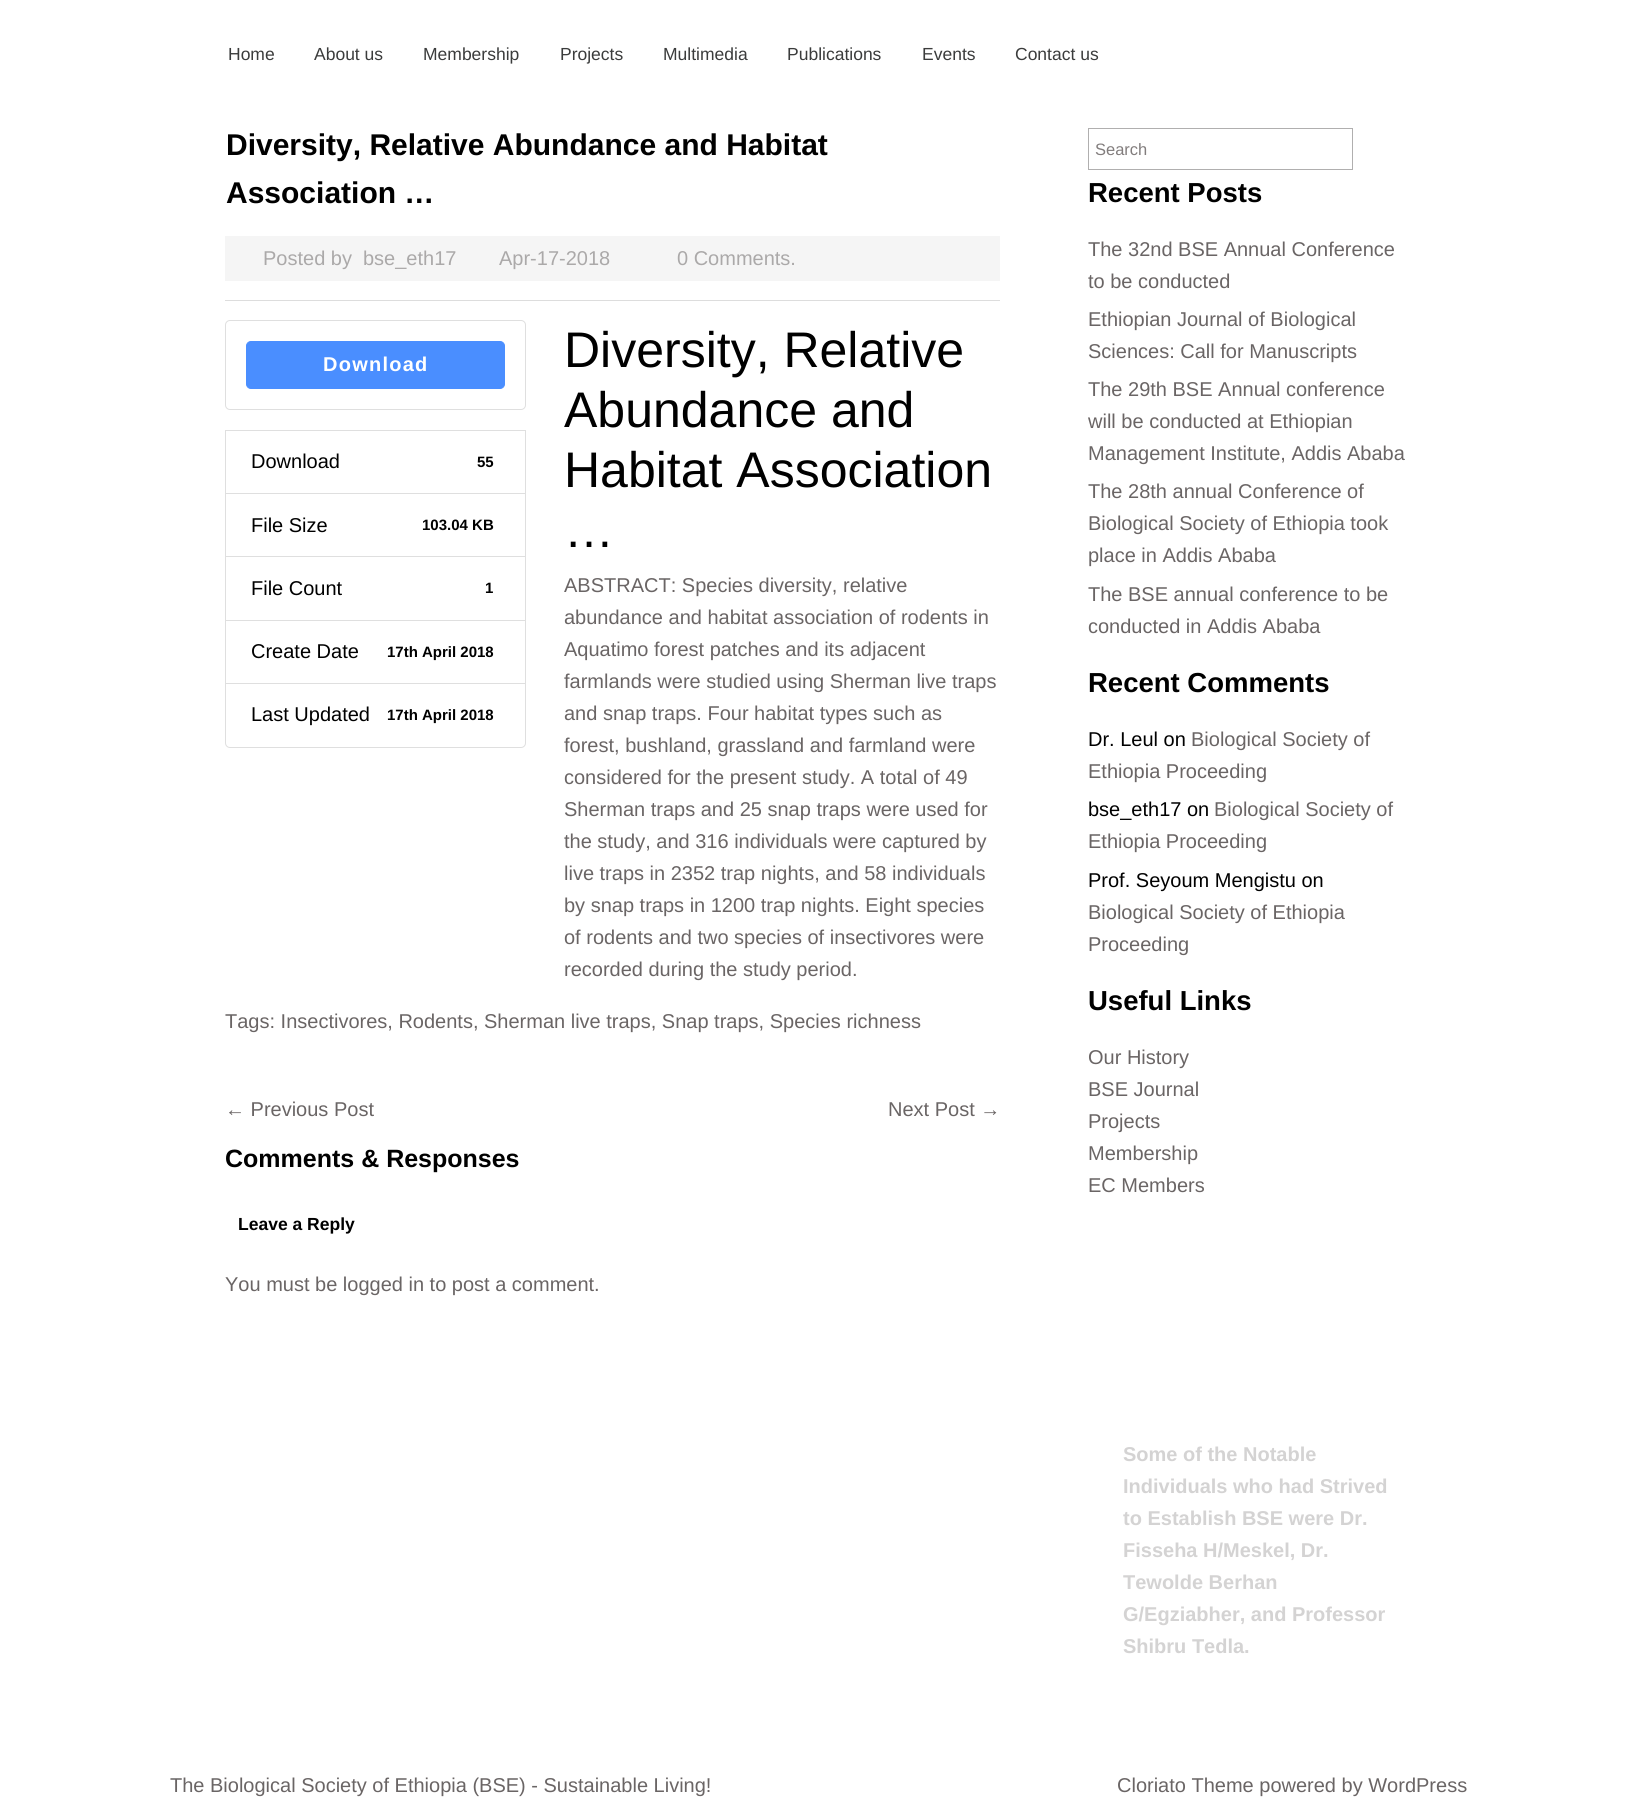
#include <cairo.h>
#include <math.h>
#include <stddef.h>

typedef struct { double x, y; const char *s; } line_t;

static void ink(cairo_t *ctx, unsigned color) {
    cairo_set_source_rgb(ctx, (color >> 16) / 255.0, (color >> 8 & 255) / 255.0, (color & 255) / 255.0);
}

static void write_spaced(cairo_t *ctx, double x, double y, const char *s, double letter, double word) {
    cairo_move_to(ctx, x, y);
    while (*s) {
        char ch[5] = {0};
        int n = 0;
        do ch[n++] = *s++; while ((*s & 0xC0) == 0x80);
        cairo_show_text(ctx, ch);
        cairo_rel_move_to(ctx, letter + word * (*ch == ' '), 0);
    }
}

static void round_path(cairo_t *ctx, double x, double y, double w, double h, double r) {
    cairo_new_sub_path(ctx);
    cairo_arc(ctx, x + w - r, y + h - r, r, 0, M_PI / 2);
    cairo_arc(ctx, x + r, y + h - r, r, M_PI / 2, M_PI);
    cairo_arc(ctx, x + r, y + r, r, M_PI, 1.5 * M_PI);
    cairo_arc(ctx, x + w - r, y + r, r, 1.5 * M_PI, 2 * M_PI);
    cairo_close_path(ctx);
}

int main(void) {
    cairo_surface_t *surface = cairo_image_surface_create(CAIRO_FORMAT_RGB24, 1637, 1799);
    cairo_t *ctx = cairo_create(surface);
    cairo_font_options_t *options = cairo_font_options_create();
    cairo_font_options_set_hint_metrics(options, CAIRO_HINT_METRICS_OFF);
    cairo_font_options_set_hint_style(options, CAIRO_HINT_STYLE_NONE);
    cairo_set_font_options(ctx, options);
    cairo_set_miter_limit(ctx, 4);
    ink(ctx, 0xFFFFFF);
    cairo_paint(ctx);
    cairo_select_font_face(ctx, "Liberation Sans", CAIRO_FONT_SLANT_NORMAL, CAIRO_FONT_WEIGHT_NORMAL);
    cairo_set_font_size(ctx, 17.5);
    ink(ctx, 0x3B3C3C);
    {
        static const line_t items[] = {
            {228, 60, "Home"},
            {314, 60, "About us"},
            {423, 60, "Membership"},
            {560, 60, "Projects"},
            {663, 60, "Multimedia"},
            {787, 60, "Publications"},
            {922, 60, "Events"},
            {1015, 60, "Contact us"},
        };
        for (size_t i = 0; i < sizeof items / sizeof *items; i++) {
            cairo_move_to(ctx, items[i].x, items[i].y);
            cairo_show_text(ctx, items[i].s);
        }
    }
    cairo_select_font_face(ctx, "Liberation Sans", CAIRO_FONT_SLANT_NORMAL, CAIRO_FONT_WEIGHT_BOLD);
    cairo_set_font_size(ctx, 30);
    ink(ctx, 0x000000);
    cairo_move_to(ctx, 226, 155);
    cairo_show_text(ctx, "Diversity, Relative Abundance and Habitat");
    cairo_move_to(ctx, 226, 203);
    cairo_show_text(ctx, "Association …");
    ink(ctx, 0xF5F5F5);
    cairo_rectangle(ctx, 225, 236, 775, 45);
    cairo_fill(ctx);
    cairo_select_font_face(ctx, "Liberation Sans", CAIRO_FONT_SLANT_NORMAL, CAIRO_FONT_WEIGHT_NORMAL);
    cairo_set_font_size(ctx, 20);
    ink(ctx, 0xABA9A9);
    {
        static const line_t items[] = {
            {263, 265, "Posted by"},
            {363, 265, "bse_eth17"},
            {499, 265, "Apr-17-2018"},
            {677, 265, "0 Comments."},
        };
        for (size_t i = 0; i < sizeof items / sizeof *items; i++) {
            cairo_move_to(ctx, items[i].x, items[i].y);
            cairo_show_text(ctx, items[i].s);
        }
    }
    ink(ctx, 0xDDDDDD);
    cairo_rectangle(ctx, 225, 300, 775, 1);
    cairo_fill(ctx);
    round_path(ctx, 225.5, 320.5, 300, 89, 4.5);
    ink(ctx, 0xDFDFDF);
    cairo_set_line_width(ctx, 1);
    cairo_stroke(ctx);
    ink(ctx, 0x4A8EFF);
    round_path(ctx, 246.5, 341.5, 258, 47, 4.5);
    cairo_fill_preserve(ctx);
    cairo_stroke(ctx);
    cairo_select_font_face(ctx, "Liberation Sans", CAIRO_FONT_SLANT_NORMAL, CAIRO_FONT_WEIGHT_BOLD);
    ink(ctx, 0xFFFFFF);
    write_spaced(ctx, 323, 371, "Download", 1.25, 0);
    cairo_rectangle(ctx, 225.5, 430.5, 300, 63);
    ink(ctx, 0xDFDFDF);
    cairo_stroke(ctx);
    cairo_select_font_face(ctx, "Liberation Sans", CAIRO_FONT_SLANT_NORMAL, CAIRO_FONT_WEIGHT_NORMAL);
    ink(ctx, 0x000000);
    cairo_move_to(ctx, 251, 468);
    cairo_show_text(ctx, "Download");
    cairo_select_font_face(ctx, "Liberation Sans", CAIRO_FONT_SLANT_NORMAL, CAIRO_FONT_WEIGHT_BOLD);
    cairo_set_font_size(ctx, 15);
    cairo_move_to(ctx, 477, 467);
    cairo_show_text(ctx, "55");
    cairo_rectangle(ctx, 225.5, 493.5, 300, 64);
    ink(ctx, 0xDFDFDF);
    cairo_stroke(ctx);
    cairo_select_font_face(ctx, "Liberation Sans", CAIRO_FONT_SLANT_NORMAL, CAIRO_FONT_WEIGHT_NORMAL);
    cairo_set_font_size(ctx, 20);
    ink(ctx, 0x000000);
    cairo_move_to(ctx, 251, 532);
    cairo_show_text(ctx, "File Size");
    cairo_select_font_face(ctx, "Liberation Sans", CAIRO_FONT_SLANT_NORMAL, CAIRO_FONT_WEIGHT_BOLD);
    cairo_set_font_size(ctx, 15);
    cairo_move_to(ctx, 422, 530);
    cairo_show_text(ctx, "103.04 KB");
    ink(ctx, 0xFFFFFF);
    cairo_rectangle(ctx, 226, 557, 299, 1);
    cairo_fill(ctx);
    cairo_rectangle(ctx, 225.5, 556.5, 300, 64);
    ink(ctx, 0xDFDFDF);
    cairo_stroke(ctx);
    cairo_select_font_face(ctx, "Liberation Sans", CAIRO_FONT_SLANT_NORMAL, CAIRO_FONT_WEIGHT_NORMAL);
    cairo_set_font_size(ctx, 20);
    ink(ctx, 0x000000);
    cairo_move_to(ctx, 251, 595);
    cairo_show_text(ctx, "File Count");
    cairo_select_font_face(ctx, "Liberation Sans", CAIRO_FONT_SLANT_NORMAL, CAIRO_FONT_WEIGHT_BOLD);
    cairo_set_font_size(ctx, 15);
    cairo_move_to(ctx, 485, 593);
    cairo_show_text(ctx, "1");
    cairo_rectangle(ctx, 225.5, 620.5, 300, 63);
    ink(ctx, 0xDFDFDF);
    cairo_stroke(ctx);
    cairo_select_font_face(ctx, "Liberation Sans", CAIRO_FONT_SLANT_NORMAL, CAIRO_FONT_WEIGHT_NORMAL);
    cairo_set_font_size(ctx, 20);
    ink(ctx, 0x000000);
    cairo_move_to(ctx, 251, 658);
    cairo_show_text(ctx, "Create Date");
    cairo_select_font_face(ctx, "Liberation Sans", CAIRO_FONT_SLANT_NORMAL, CAIRO_FONT_WEIGHT_BOLD);
    cairo_set_font_size(ctx, 15);
    cairo_move_to(ctx, 387, 657);
    cairo_show_text(ctx, "17th April 2018");
    ink(ctx, 0xFFFFFF);
    cairo_new_path(ctx);
    cairo_move_to(ctx, 225.5, 683.5);
    cairo_line_to(ctx, 525.5, 683.5);
    cairo_line_to(ctx, 525.5, 743);
    cairo_curve_to(ctx, 525.5, 745.5, 523.5, 747.5, 521, 747.5);
    cairo_line_to(ctx, 230, 747.5);
    cairo_curve_to(ctx, 227.5, 747.5, 225.5, 745.5, 225.5, 743);
    cairo_close_path(ctx);
    cairo_fill_preserve(ctx);
    ink(ctx, 0xDFDFDF);
    cairo_stroke(ctx);
    cairo_select_font_face(ctx, "Liberation Sans", CAIRO_FONT_SLANT_NORMAL, CAIRO_FONT_WEIGHT_NORMAL);
    cairo_set_font_size(ctx, 20);
    ink(ctx, 0x000000);
    cairo_move_to(ctx, 251, 721);
    cairo_show_text(ctx, "Last Updated");
    cairo_select_font_face(ctx, "Liberation Sans", CAIRO_FONT_SLANT_NORMAL, CAIRO_FONT_WEIGHT_BOLD);
    cairo_set_font_size(ctx, 15);
    cairo_move_to(ctx, 387, 720);
    cairo_show_text(ctx, "17th April 2018");
    cairo_select_font_face(ctx, "Liberation Sans", CAIRO_FONT_SLANT_NORMAL, CAIRO_FONT_WEIGHT_NORMAL);
    cairo_set_font_size(ctx, 50);
    {
        static const line_t items[] = {
            {564, 367, "Diversity, Relative"},
            {564, 427, "Abundance and"},
            {564, 487, "Habitat Association"},
            {564, 547, "…"},
        };
        for (size_t i = 0; i < sizeof items / sizeof *items; i++) {
            cairo_move_to(ctx, items[i].x, items[i].y);
            cairo_show_text(ctx, items[i].s);
        }
    }
    cairo_set_font_size(ctx, 20);
    ink(ctx, 0x6A6565);
    {
        static const line_t items[] = {
            {564, 592, "ABSTRACT: Species diversity, relative"},
            {564, 624, "abundance and habitat association of rodents in"},
            {564, 656, "Aquatimo forest patches and its adjacent"},
            {564, 688, "farmlands were studied using Sherman live traps"},
            {564, 720, "and snap traps. Four habitat types such as"},
            {564, 752, "forest, bushland, grassland and farmland were"},
            {564, 784, "considered for the present study. A total of 49"},
            {564, 816, "Sherman traps and 25 snap traps were used for"},
            {564, 848, "the study, and 316 individuals were captured by"},
            {564, 880, "live traps in 2352 trap nights, and 58 individuals"},
            {564, 912, "by snap traps in 1200 trap nights. Eight species"},
            {564, 944, "of rodents and two species of insectivores were"},
            {564, 976, "recorded during the study period."},
            {225, 1028, "Tags: Insectivores, Rodents, Sherman live traps, Snap traps, Species richness"},
            {225, 1116, "← Previous Post"},
            {888, 1116, "Next Post →"},
        };
        for (size_t i = 0; i < sizeof items / sizeof *items; i++) {
            cairo_move_to(ctx, items[i].x, items[i].y);
            cairo_show_text(ctx, items[i].s);
        }
    }
    cairo_select_font_face(ctx, "Liberation Sans", CAIRO_FONT_SLANT_NORMAL, CAIRO_FONT_WEIGHT_BOLD);
    cairo_set_font_size(ctx, 25);
    ink(ctx, 0x000000);
    cairo_move_to(ctx, 225, 1167);
    cairo_show_text(ctx, "Comments & Responses");
    cairo_set_font_size(ctx, 17.5);
    cairo_move_to(ctx, 238, 1230);
    cairo_show_text(ctx, "Leave a Reply");
    cairo_select_font_face(ctx, "Liberation Sans", CAIRO_FONT_SLANT_NORMAL, CAIRO_FONT_WEIGHT_NORMAL);
    cairo_set_font_size(ctx, 20);
    ink(ctx, 0x6A6565);
    cairo_move_to(ctx, 225, 1291);
    cairo_show_text(ctx, "You must be logged in to post a comment.");
    cairo_rectangle(ctx, 1088.5, 128.5, 264, 41);
    ink(ctx, 0xB0AFAF);
    cairo_stroke(ctx);
    cairo_set_font_size(ctx, 16.5);
    ink(ctx, 0x827D7D);
    cairo_move_to(ctx, 1095, 155);
    cairo_show_text(ctx, "Search");
    cairo_select_font_face(ctx, "Liberation Sans", CAIRO_FONT_SLANT_NORMAL, CAIRO_FONT_WEIGHT_BOLD);
    cairo_set_font_size(ctx, 27.5);
    ink(ctx, 0x000000);
    cairo_move_to(ctx, 1088, 202);
    cairo_show_text(ctx, "Recent Posts");
    cairo_select_font_face(ctx, "Liberation Sans", CAIRO_FONT_SLANT_NORMAL, CAIRO_FONT_WEIGHT_NORMAL);
    cairo_set_font_size(ctx, 20);
    ink(ctx, 0x6A6565);
    {
        static const line_t items[] = {
            {1088, 256, "The 32nd BSE Annual Conference"},
            {1088, 288, "to be conducted"},
            {1088, 326, "Ethiopian Journal of Biological"},
            {1088, 358, "Sciences: Call for Manuscripts"},
            {1088, 396, "The 29th BSE Annual conference"},
            {1088, 428, "will be conducted at Ethiopian"},
            {1088, 460, "Management Institute, Addis Ababa"},
            {1088, 498, "The 28th annual Conference of"},
            {1088, 530, "Biological Society of Ethiopia took"},
            {1088, 562, "place in Addis Ababa"},
            {1088, 601, "The BSE annual conference to be"},
            {1088, 633, "conducted in Addis Ababa"},
        };
        for (size_t i = 0; i < sizeof items / sizeof *items; i++) {
            cairo_move_to(ctx, items[i].x, items[i].y);
            cairo_show_text(ctx, items[i].s);
        }
    }
    cairo_select_font_face(ctx, "Liberation Sans", CAIRO_FONT_SLANT_NORMAL, CAIRO_FONT_WEIGHT_BOLD);
    cairo_set_font_size(ctx, 27.5);
    ink(ctx, 0x000000);
    cairo_move_to(ctx, 1088, 692);
    cairo_show_text(ctx, "Recent Comments");
    cairo_select_font_face(ctx, "Liberation Sans", CAIRO_FONT_SLANT_NORMAL, CAIRO_FONT_WEIGHT_NORMAL);
    cairo_set_font_size(ctx, 20);
    cairo_move_to(ctx, 1088, 746);
    cairo_show_text(ctx, "Dr. Leul on");
    ink(ctx, 0x6A6565);
    cairo_move_to(ctx, 1191, 746);
    cairo_show_text(ctx, "Biological Society of");
    cairo_move_to(ctx, 1088, 778);
    cairo_show_text(ctx, "Ethiopia Proceeding");
    ink(ctx, 0x000000);
    cairo_move_to(ctx, 1088, 816);
    cairo_show_text(ctx, "bse_eth17 on");
    ink(ctx, 0x6A6565);
    cairo_move_to(ctx, 1214, 816);
    cairo_show_text(ctx, "Biological Society of");
    cairo_move_to(ctx, 1088, 848);
    cairo_show_text(ctx, "Ethiopia Proceeding");
    ink(ctx, 0x000000);
    cairo_move_to(ctx, 1088, 887);
    cairo_show_text(ctx, "Prof. Seyoum Mengistu on");
    ink(ctx, 0x6A6565);
    cairo_move_to(ctx, 1088, 919);
    cairo_show_text(ctx, "Biological Society of Ethiopia");
    cairo_move_to(ctx, 1088, 951);
    cairo_show_text(ctx, "Proceeding");
    cairo_select_font_face(ctx, "Liberation Sans", CAIRO_FONT_SLANT_NORMAL, CAIRO_FONT_WEIGHT_BOLD);
    cairo_set_font_size(ctx, 27.5);
    ink(ctx, 0x000000);
    cairo_move_to(ctx, 1088, 1010);
    cairo_show_text(ctx, "Useful Links");
    cairo_select_font_face(ctx, "Liberation Sans", CAIRO_FONT_SLANT_NORMAL, CAIRO_FONT_WEIGHT_NORMAL);
    cairo_set_font_size(ctx, 20);
    ink(ctx, 0x6A6565);
    {
        static const line_t items[] = {
            {1088, 1064, "Our History"},
            {1088, 1096, "BSE Journal"},
            {1088, 1128, "Projects"},
            {1088, 1160, "Membership"},
            {1088, 1192, "EC Members"},
        };
        for (size_t i = 0; i < sizeof items / sizeof *items; i++) {
            cairo_move_to(ctx, items[i].x, items[i].y);
            cairo_show_text(ctx, items[i].s);
        }
    }
    cairo_select_font_face(ctx, "Liberation Sans", CAIRO_FONT_SLANT_NORMAL, CAIRO_FONT_WEIGHT_BOLD);
    ink(ctx, 0xD4D3D3);
    {
        static const line_t items[] = {
            {1123, 1461, "Some of the Notable"},
            {1123, 1493, "Individuals who had Strived"},
            {1123, 1525, "to Establish BSE were Dr."},
            {1123, 1557, "Fisseha H/Meskel, Dr."},
            {1123, 1589, "Tewolde Berhan"},
            {1123, 1621, "G/Egziabher, and Professor"},
            {1123, 1653, "Shibru Tedla."},
        };
        for (size_t i = 0; i < sizeof items / sizeof *items; i++) {
            cairo_move_to(ctx, items[i].x, items[i].y);
            cairo_show_text(ctx, items[i].s);
        }
    }
    cairo_select_font_face(ctx, "Liberation Sans", CAIRO_FONT_SLANT_NORMAL, CAIRO_FONT_WEIGHT_NORMAL);
    ink(ctx, 0x6A6565);
    cairo_move_to(ctx, 170, 1792);
    cairo_show_text(ctx, "The Biological Society of Ethiopia (BSE) - Sustainable Living!");
    cairo_move_to(ctx, 1117, 1792);
    cairo_show_text(ctx, "Cloriato Theme powered by WordPress");
    cairo_surface_write_to_png(surface, "image.png");
    cairo_font_options_destroy(options);
    cairo_destroy(ctx);
    cairo_surface_destroy(surface);
    return 0;
}
